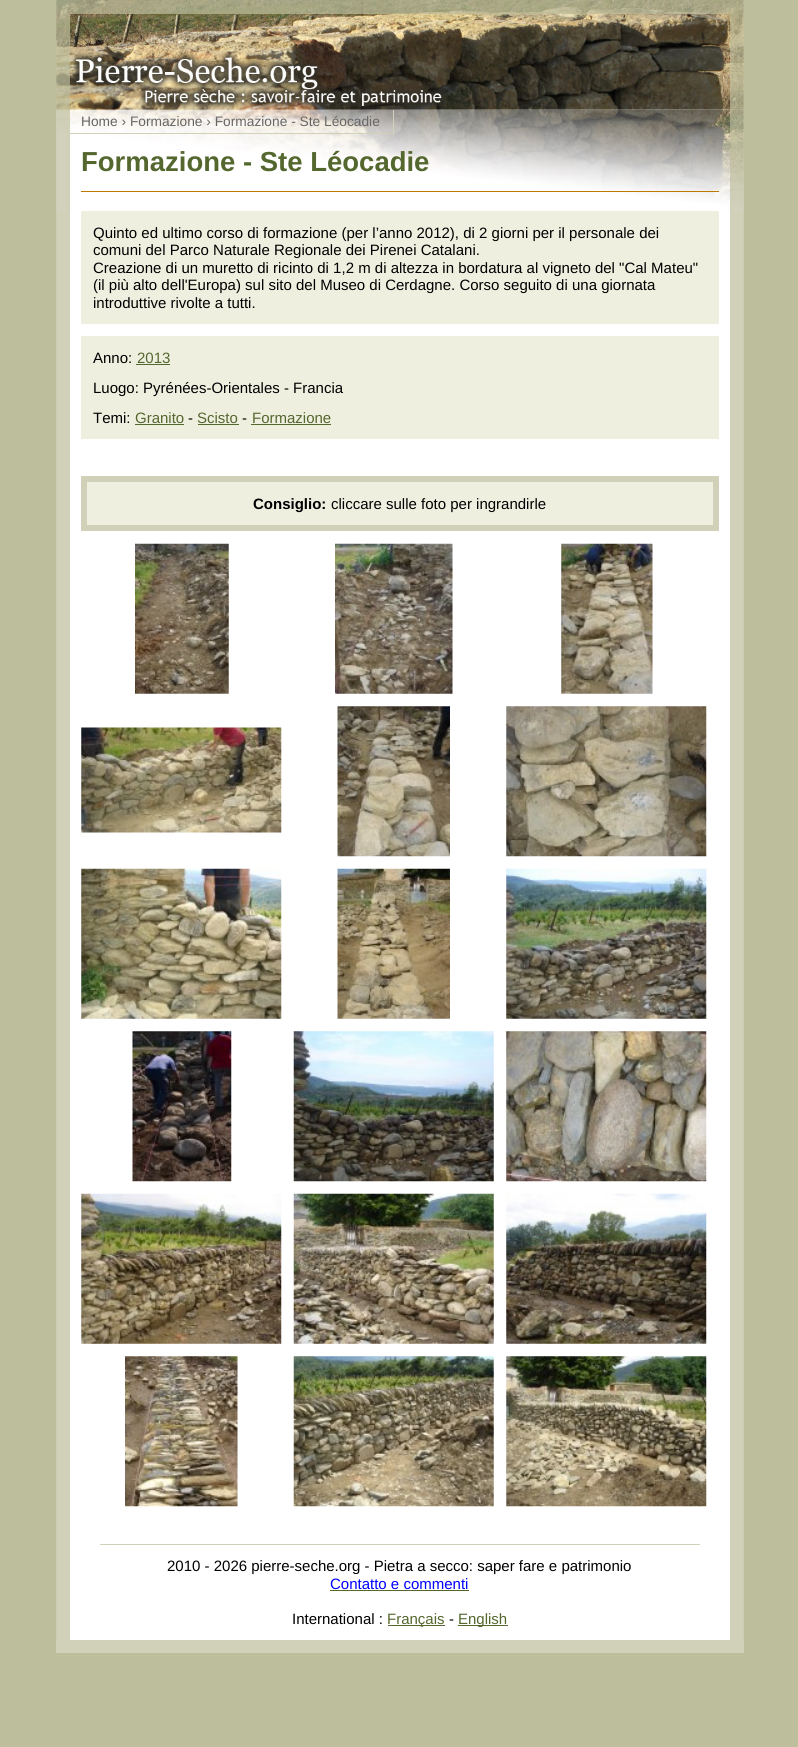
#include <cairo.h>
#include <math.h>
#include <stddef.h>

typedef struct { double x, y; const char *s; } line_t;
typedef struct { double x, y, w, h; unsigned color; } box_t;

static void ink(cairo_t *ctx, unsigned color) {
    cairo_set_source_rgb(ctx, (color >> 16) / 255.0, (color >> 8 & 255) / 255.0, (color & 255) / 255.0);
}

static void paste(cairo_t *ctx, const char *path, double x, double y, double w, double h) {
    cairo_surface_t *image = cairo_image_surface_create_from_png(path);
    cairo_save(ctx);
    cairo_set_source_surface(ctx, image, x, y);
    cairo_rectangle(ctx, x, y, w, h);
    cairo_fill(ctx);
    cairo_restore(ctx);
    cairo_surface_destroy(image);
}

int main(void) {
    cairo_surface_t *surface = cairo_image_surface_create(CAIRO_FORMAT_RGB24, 798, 1747);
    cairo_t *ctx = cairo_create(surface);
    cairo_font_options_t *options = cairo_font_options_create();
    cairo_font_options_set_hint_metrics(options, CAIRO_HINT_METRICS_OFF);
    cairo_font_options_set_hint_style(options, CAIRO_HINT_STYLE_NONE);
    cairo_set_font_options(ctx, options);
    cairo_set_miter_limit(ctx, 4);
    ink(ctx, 0xBDBE9C);
    cairo_paint(ctx);
    paste(ctx, "media/1.png", 56, 0, 688, 1640);
    paste(ctx, "media/2.png", 56, 0, 688, 110);
    paste(ctx, "media/3.png", 56, 110, 688, 102);
    {
        static const box_t items[] = {
            {56, 1640, 688, 13, 0xD1D1BA},
            {393, 110, 1, 24, 0xD1D1BA},
            {69, 133, 325, 1, 0xD1D1BA},
        };
        for (size_t i = 0; i < sizeof items / sizeof *items; i++) {
            ink(ctx, items[i].color);
            cairo_rectangle(ctx, items[i].x, items[i].y, items[i].w, items[i].h);
            cairo_fill(ctx);
        }
    }
    cairo_select_font_face(ctx, "Liberation Sans", CAIRO_FONT_SLANT_NORMAL, CAIRO_FONT_WEIGHT_NORMAL);
    cairo_set_font_size(ctx, 13.75);
    ink(ctx, 0x666666);
    cairo_move_to(ctx, 81, 126);
    cairo_show_text(ctx, "Home › Formazione › Formazione - Ste Léocadie");
    ink(ctx, 0xBE7900);
    cairo_rectangle(ctx, 81, 191, 638, 1);
    cairo_fill(ctx);
    cairo_select_font_face(ctx, "Liberation Sans", CAIRO_FONT_SLANT_NORMAL, CAIRO_FONT_WEIGHT_BOLD);
    cairo_set_font_size(ctx, 27.5);
    ink(ctx, 0x54672E);
    cairo_move_to(ctx, 81, 171);
    cairo_show_text(ctx, "Formazione - Ste Léocadie");
    ink(ctx, 0xEFEFE0);
    cairo_rectangle(ctx, 81, 211, 638, 113);
    cairo_fill(ctx);
    cairo_select_font_face(ctx, "Liberation Sans", CAIRO_FONT_SLANT_NORMAL, CAIRO_FONT_WEIGHT_NORMAL);
    cairo_set_font_size(ctx, 15);
    ink(ctx, 0x000000);
    {
        static const line_t items[] = {
            {93, 238, "Quinto ed ultimo corso di formazione (per l’anno 2012), di 2 giorni per il personale dei"},
            {93, 255, "comuni del Parco Naturale Regionale dei Pirenei Catalani."},
            {93, 273, "Creazione di un muretto di ricinto di 1,2 m di altezza in bordatura al vigneto del \"Cal Mateu\""},
            {93, 290, "(il più alto dell'Europa) sul sito del Museo di Cerdagne. Corso seguito di una giornata"},
            {93, 308, "introduttive rivolte a tutti."},
        };
        for (size_t i = 0; i < sizeof items / sizeof *items; i++) {
            cairo_move_to(ctx, items[i].x, items[i].y);
            cairo_show_text(ctx, items[i].s);
        }
    }
    ink(ctx, 0xEFEFE0);
    cairo_rectangle(ctx, 81, 336, 638, 103);
    cairo_fill(ctx);
    ink(ctx, 0x000000);
    cairo_move_to(ctx, 93, 363);
    cairo_show_text(ctx, "Anno:");
    ink(ctx, 0x54672E);
    cairo_move_to(ctx, 137, 363);
    cairo_show_text(ctx, "2013");
    cairo_rectangle(ctx, 136, 364, 34, 1);
    cairo_fill(ctx);
    ink(ctx, 0x000000);
    cairo_move_to(ctx, 93, 393);
    cairo_show_text(ctx, "Luogo: Pyrénées-Orientales - Francia");
    cairo_move_to(ctx, 93, 423);
    cairo_show_text(ctx, "Temi:");
    ink(ctx, 0x54672E);
    cairo_move_to(ctx, 135, 423);
    cairo_show_text(ctx, "Granito");
    cairo_rectangle(ctx, 135, 424, 49, 1);
    cairo_fill(ctx);
    ink(ctx, 0x000000);
    cairo_move_to(ctx, 188, 423);
    cairo_show_text(ctx, "-");
    ink(ctx, 0x54672E);
    cairo_move_to(ctx, 197, 423);
    cairo_show_text(ctx, "Scisto");
    cairo_rectangle(ctx, 198, 424, 41, 1);
    cairo_fill(ctx);
    ink(ctx, 0x000000);
    cairo_move_to(ctx, 242, 423);
    cairo_show_text(ctx, "-");
    ink(ctx, 0x54672E);
    cairo_move_to(ctx, 252, 423);
    cairo_show_text(ctx, "Formazione");
    cairo_rectangle(ctx, 251, 424, 80, 1);
    cairo_fill(ctx);
    ink(ctx, 0xEFEFE0);
    cairo_rectangle(ctx, 84, 479, 632, 49);
    cairo_fill_preserve(ctx);
    ink(ctx, 0xD1D1BA);
    cairo_set_line_width(ctx, 6);
    cairo_stroke(ctx);
    cairo_select_font_face(ctx, "Liberation Sans", CAIRO_FONT_SLANT_NORMAL, CAIRO_FONT_WEIGHT_BOLD);
    ink(ctx, 0x000000);
    cairo_move_to(ctx, 253, 509);
    cairo_show_text(ctx, "Consiglio:");
    cairo_select_font_face(ctx, "Liberation Sans", CAIRO_FONT_SLANT_NORMAL, CAIRO_FONT_WEIGHT_NORMAL);
    cairo_move_to(ctx, 331, 509);
    cairo_show_text(ctx, "cliccare sulle foto per ingrandirle");
    paste(ctx, "media/4.png", 135, 543, 94, 151);
    paste(ctx, "media/5.png", 335, 543, 118, 151);
    paste(ctx, "media/6.png", 561, 543, 92, 151);
    paste(ctx, "media/7.png", 81, 727, 201, 106);
    paste(ctx, "media/8.png", 337, 706, 113, 151);
    paste(ctx, "media/9.png", 506, 706, 201, 151);
    paste(ctx, "media/10.png", 81, 868, 201, 151);
    paste(ctx, "media/11.png", 337, 868, 113, 151);
    paste(ctx, "media/12.png", 506, 868, 201, 151);
    paste(ctx, "media/13.png", 132, 1031, 100, 151);
    paste(ctx, "media/14.png", 293, 1031, 201, 151);
    paste(ctx, "media/15.png", 506, 1031, 201, 151);
    paste(ctx, "media/16.png", 81, 1193, 201, 151);
    paste(ctx, "media/17.png", 293, 1193, 201, 151);
    paste(ctx, "media/18.png", 506, 1193, 201, 151);
    paste(ctx, "media/19.png", 125, 1356, 113, 151);
    paste(ctx, "media/20.png", 293, 1356, 201, 151);
    paste(ctx, "media/21.png", 506, 1356, 201, 151);
    ink(ctx, 0xD1D1BA);
    cairo_rectangle(ctx, 100, 1544, 600, 1);
    cairo_fill(ctx);
    ink(ctx, 0x000000);
    cairo_move_to(ctx, 167, 1571);
    cairo_show_text(ctx, "2010 - 2026 pierre-seche.org - Pietra a secco: saper fare e patrimonio");
    ink(ctx, 0x0000FF);
    cairo_move_to(ctx, 330, 1589);
    cairo_show_text(ctx, "Contatto e commenti");
    ink(ctx, 0x54672E);
    cairo_rectangle(ctx, 330, 1590, 139, 1);
    cairo_fill(ctx);
    ink(ctx, 0x000000);
    cairo_move_to(ctx, 292, 1624);
    cairo_show_text(ctx, "International :");
    ink(ctx, 0x54672E);
    cairo_rectangle(ctx, 388, 1625, 57, 1);
    cairo_fill(ctx);
    cairo_move_to(ctx, 387, 1624);
    cairo_show_text(ctx, "Français");
    ink(ctx, 0x000000);
    cairo_move_to(ctx, 449, 1624);
    cairo_show_text(ctx, "-");
    ink(ctx, 0x54672E);
    cairo_rectangle(ctx, 458, 1625, 50, 1);
    cairo_fill(ctx);
    cairo_move_to(ctx, 458, 1624);
    cairo_show_text(ctx, "English");
    cairo_surface_write_to_png(surface, "image.png");
    cairo_font_options_destroy(options);
    cairo_destroy(ctx);
    cairo_surface_destroy(surface);
    return 0;
}
